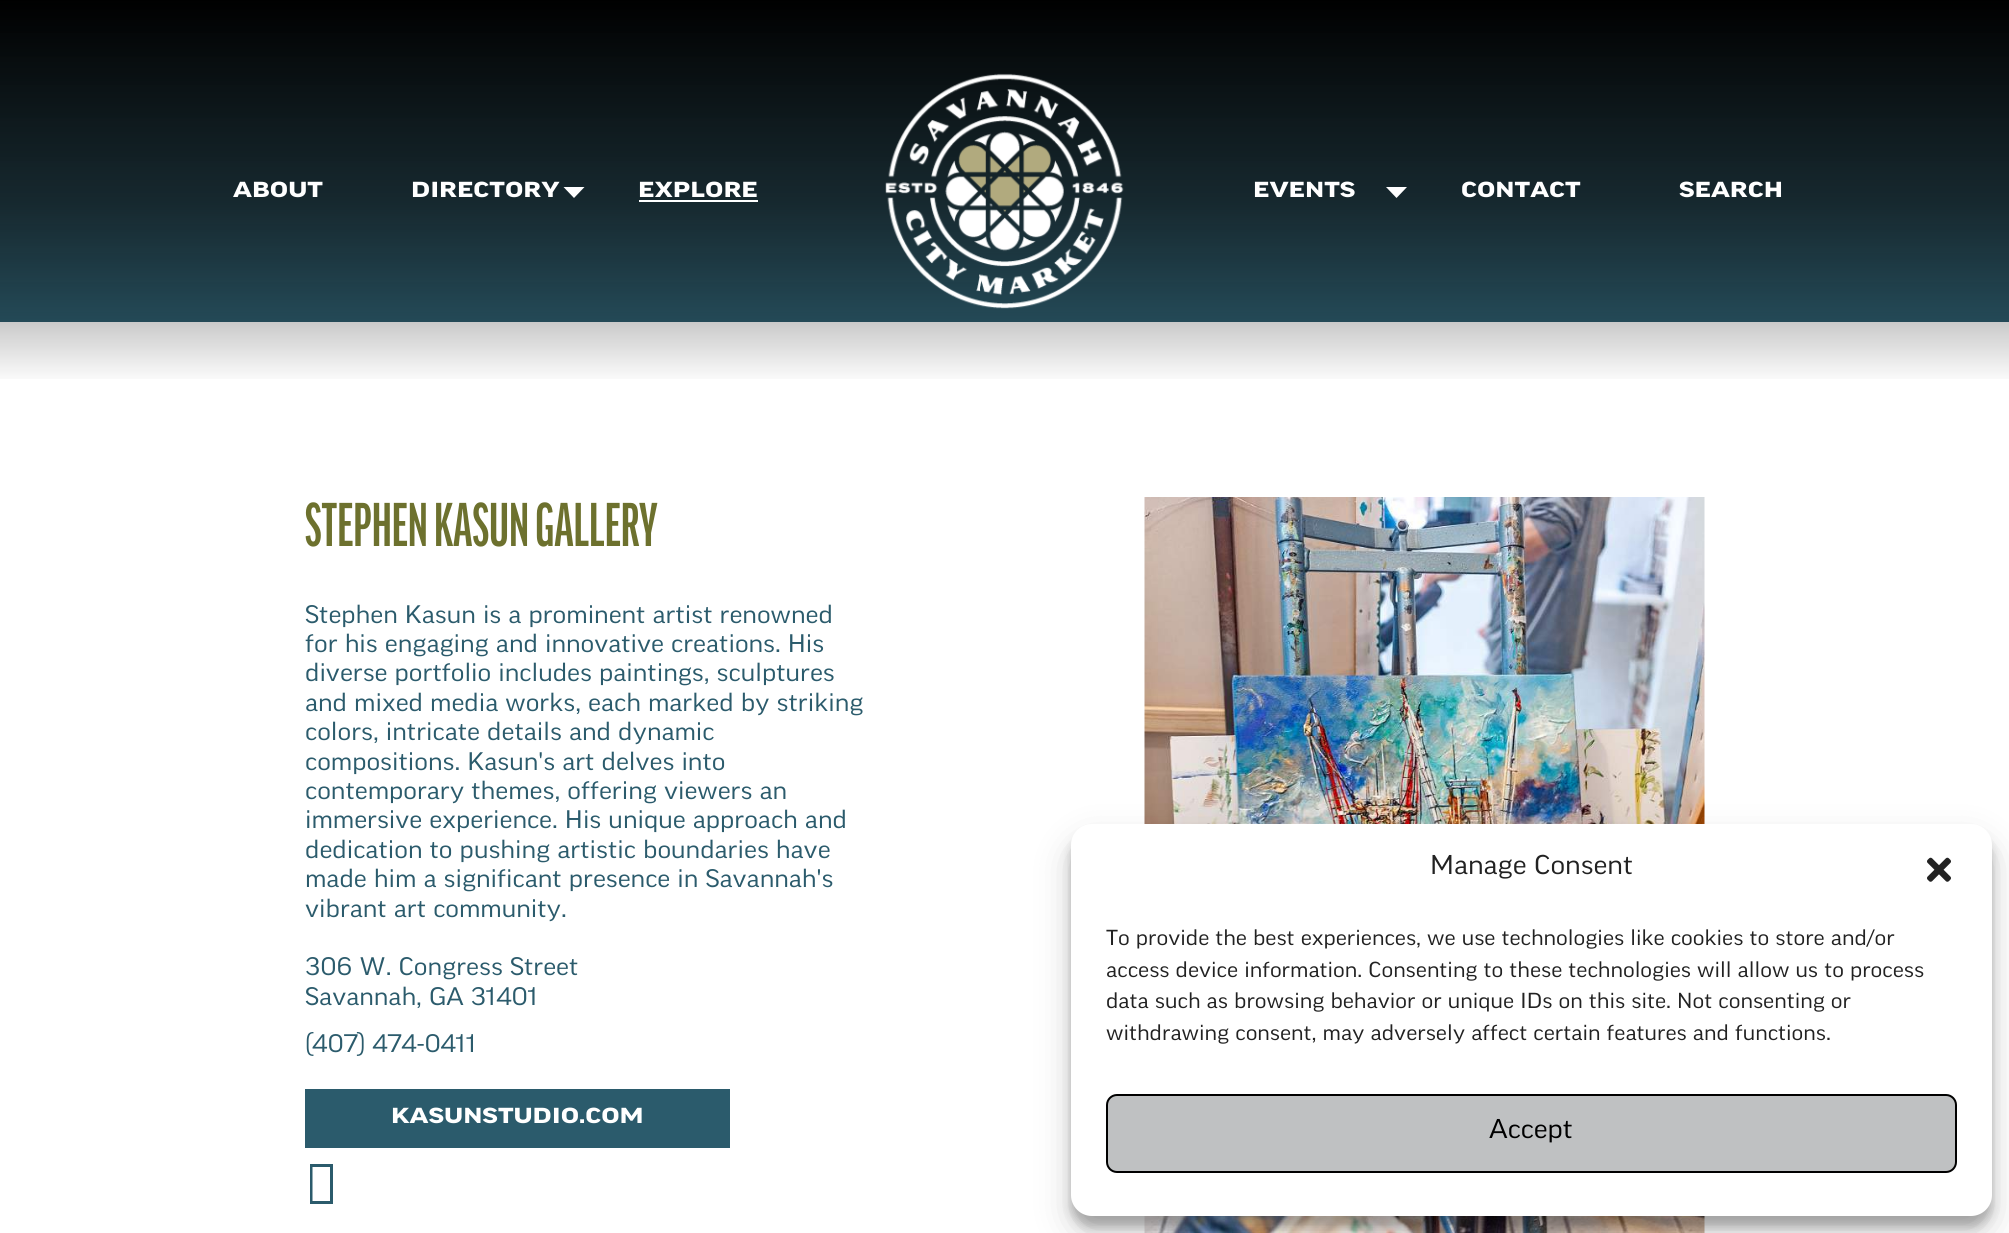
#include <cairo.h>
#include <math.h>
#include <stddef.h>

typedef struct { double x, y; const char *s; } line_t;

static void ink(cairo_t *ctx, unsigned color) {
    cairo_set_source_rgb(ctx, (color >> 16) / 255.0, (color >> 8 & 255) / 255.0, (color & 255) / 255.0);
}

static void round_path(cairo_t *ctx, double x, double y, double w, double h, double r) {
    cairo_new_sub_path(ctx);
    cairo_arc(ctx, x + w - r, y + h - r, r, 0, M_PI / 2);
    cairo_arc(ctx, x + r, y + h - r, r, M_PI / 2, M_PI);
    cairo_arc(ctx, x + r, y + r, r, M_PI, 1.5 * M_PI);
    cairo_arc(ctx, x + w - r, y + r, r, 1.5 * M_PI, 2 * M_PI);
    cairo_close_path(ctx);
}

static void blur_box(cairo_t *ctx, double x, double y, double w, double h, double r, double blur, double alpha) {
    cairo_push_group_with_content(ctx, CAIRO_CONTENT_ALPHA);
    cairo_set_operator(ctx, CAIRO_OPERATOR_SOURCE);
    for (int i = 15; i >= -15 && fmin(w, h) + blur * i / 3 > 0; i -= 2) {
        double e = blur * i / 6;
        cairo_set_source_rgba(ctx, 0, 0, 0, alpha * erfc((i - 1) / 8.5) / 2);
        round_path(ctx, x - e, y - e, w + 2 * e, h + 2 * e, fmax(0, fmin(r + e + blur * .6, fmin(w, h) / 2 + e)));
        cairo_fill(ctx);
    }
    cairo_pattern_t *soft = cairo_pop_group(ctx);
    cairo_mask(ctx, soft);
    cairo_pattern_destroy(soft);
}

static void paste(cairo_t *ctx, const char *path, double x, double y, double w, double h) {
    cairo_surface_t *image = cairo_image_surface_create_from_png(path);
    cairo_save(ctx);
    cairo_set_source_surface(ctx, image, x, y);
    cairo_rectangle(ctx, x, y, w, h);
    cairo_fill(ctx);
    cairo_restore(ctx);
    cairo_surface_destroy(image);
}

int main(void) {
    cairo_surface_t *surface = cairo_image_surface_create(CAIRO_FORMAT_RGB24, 2009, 1233);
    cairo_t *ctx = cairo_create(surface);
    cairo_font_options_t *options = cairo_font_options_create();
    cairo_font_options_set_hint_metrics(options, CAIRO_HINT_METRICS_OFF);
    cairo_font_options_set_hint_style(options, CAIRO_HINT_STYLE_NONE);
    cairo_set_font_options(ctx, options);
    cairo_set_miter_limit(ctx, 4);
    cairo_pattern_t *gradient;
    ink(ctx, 0xFFFFFF);
    cairo_paint(ctx);
    ink(ctx, 0x2B5B6C);
    cairo_rectangle(ctx, 0, 3, 2009, 319);
    cairo_fill(ctx);
    gradient = cairo_pattern_create_linear(1005, 0, 1005, 385);
    cairo_pattern_add_color_stop_rgba(gradient, 0, 0, 0, 0, 1);
    cairo_pattern_add_color_stop_rgba(gradient, 0.53, 0.039, 0.039, 0.039, 0.62);
    cairo_pattern_add_color_stop_rgba(gradient, 1, 0.039, 0.039, 0.039, 0);
    cairo_set_source(ctx, gradient);
    cairo_pattern_destroy(gradient);
    cairo_rectangle(ctx, 0, 0, 2009, 379);
    cairo_fill(ctx);
    cairo_select_font_face(ctx, "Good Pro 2", CAIRO_FONT_SLANT_NORMAL, CAIRO_FONT_WEIGHT_BOLD);
    cairo_set_font_size(ctx, 21);
    ink(ctx, 0xFFFFFF);
    cairo_move_to(ctx, 233, 197);
    cairo_show_text(ctx, "ABOUT");
    cairo_move_to(ctx, 411, 197);
    cairo_show_text(ctx, "DIRECTORY");
    cairo_new_path(ctx);
    cairo_move_to(ctx, 563.5, 187);
    cairo_line_to(ctx, 584.5, 187);
    cairo_line_to(ctx, 574, 198);
    cairo_close_path(ctx);
    cairo_fill(ctx);
    cairo_move_to(ctx, 638, 197);
    cairo_show_text(ctx, "EXPLORE");
    cairo_rectangle(ctx, 639, 200, 119, 2);
    cairo_fill(ctx);
    paste(ctx, "media/1.png", 885, 73, 239, 236);
    cairo_move_to(ctx, 1253, 197);
    cairo_show_text(ctx, "EVENTS");
    cairo_new_path(ctx);
    cairo_move_to(ctx, 1386, 187);
    cairo_line_to(ctx, 1407, 187);
    cairo_line_to(ctx, 1396.5, 198);
    cairo_close_path(ctx);
    cairo_fill(ctx);
    cairo_move_to(ctx, 1461, 197);
    cairo_show_text(ctx, "CONTACT");
    cairo_move_to(ctx, 1679, 197);
    cairo_show_text(ctx, "SEARCH");
    cairo_select_font_face(ctx, "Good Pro", CAIRO_FONT_SLANT_NORMAL, CAIRO_FONT_WEIGHT_BOLD);
    cairo_set_font_size(ctx, 59.5);
    ink(ctx, 0x6D712E);
    cairo_move_to(ctx, 305, 546);
    cairo_show_text(ctx, "STEPHEN KASUN GALLERY");
    cairo_select_font_face(ctx, "Good Pro", CAIRO_FONT_SLANT_NORMAL, CAIRO_FONT_WEIGHT_NORMAL);
    cairo_set_font_size(ctx, 24.5);
    ink(ctx, 0x2B5B6C);
    {
        static const line_t items[] = {
            {305, 623, "Stephen Kasun is a prominent artist renowned"},
            {305, 652, "for his engaging and innovative creations. His"},
            {305, 681, "diverse portfolio includes paintings, sculptures"},
            {305, 711, "and mixed media works, each marked by striking"},
            {305, 740, "colors, intricate details and dynamic"},
            {305, 770, "compositions. Kasun's art delves into"},
            {305, 799, "contemporary themes, offering viewers an"},
            {305, 828, "immersive experience. His unique approach and"},
            {305, 858, "dedication to pushing artistic boundaries have"},
            {305, 887, "made him a significant presence in Savannah's"},
            {305, 917, "vibrant art community."},
            {305, 975, "306 W. Congress Street"},
            {305, 1005, "Savannah, GA 31401"},
            {305, 1052, "(407) 474-0411"},
        };
        for (size_t i = 0; i < sizeof items / sizeof *items; i++) {
            cairo_move_to(ctx, items[i].x, items[i].y);
            cairo_show_text(ctx, items[i].s);
        }
    }
    cairo_rectangle(ctx, 305, 1089, 425, 59);
    cairo_fill(ctx);
    cairo_select_font_face(ctx, "Good Pro 2", CAIRO_FONT_SLANT_NORMAL, CAIRO_FONT_WEIGHT_BOLD);
    cairo_set_font_size(ctx, 21);
    ink(ctx, 0xFFFFFF);
    cairo_move_to(ctx, 391, 1123);
    cairo_show_text(ctx, "KASUNSTUDIO.COM");
    ink(ctx, 0x2B5B6C);
    cairo_new_path(ctx);
    cairo_move_to(ctx, 310, 1204);
    cairo_line_to(ctx, 310, 1164);
    cairo_line_to(ctx, 333, 1164);
    cairo_line_to(ctx, 333, 1204);
    cairo_close_path(ctx);
    cairo_move_to(ctx, 312.5, 1201);
    cairo_line_to(ctx, 330, 1201);
    cairo_line_to(ctx, 330, 1167);
    cairo_line_to(ctx, 312.5, 1167);
    cairo_close_path(ctx);
    cairo_fill(ctx);
    paste(ctx, "media/2.png", 1144, 497, 561, 736);
    ink(ctx, 0x000000);
    blur_box(ctx, 1071, 835, 921, 392, 21, 5, 0.23);
    blur_box(ctx, 1071, 842, 921, 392, 21, 17.5, 0.19);
    ink(ctx, 0xFFFFFF);
    round_path(ctx, 1071, 824, 921, 392, 21);
    cairo_fill(ctx);
    cairo_select_font_face(ctx, "Good Pro", CAIRO_FONT_SLANT_NORMAL, CAIRO_FONT_WEIGHT_NORMAL);
    cairo_set_font_size(ctx, 26.25);
    ink(ctx, 0x222222);
    cairo_move_to(ctx, 1430, 874);
    cairo_show_text(ctx, "Manage Consent");
    paste(ctx, "media/3.png", 1927, 857, 24, 25);
    cairo_set_font_size(ctx, 21);
    {
        static const line_t items[] = {
            {1106, 945, "To provide the best experiences, we use technologies like cookies to store and/or"},
            {1106, 977, "access device information. Consenting to these technologies will allow us to process"},
            {1106, 1008, "data such as browsing behavior or unique IDs on this site. Not consenting or"},
            {1106, 1040, "withdrawing consent, may adversely affect certain features and functions."},
        };
        for (size_t i = 0; i < sizeof items / sizeof *items; i++) {
            cairo_move_to(ctx, items[i].x, items[i].y);
            cairo_show_text(ctx, items[i].s);
        }
    }
    ink(ctx, 0xBFC1C2);
    round_path(ctx, 1107, 1095, 849, 77, 10);
    cairo_fill_preserve(ctx);
    ink(ctx, 0x000000);
    cairo_stroke(ctx);
    cairo_set_font_size(ctx, 26.25);
    cairo_move_to(ctx, 1489, 1138);
    cairo_show_text(ctx, "Accept");
    cairo_surface_write_to_png(surface, "image.png");
    cairo_font_options_destroy(options);
    cairo_destroy(ctx);
    cairo_surface_destroy(surface);
    return 0;
}
